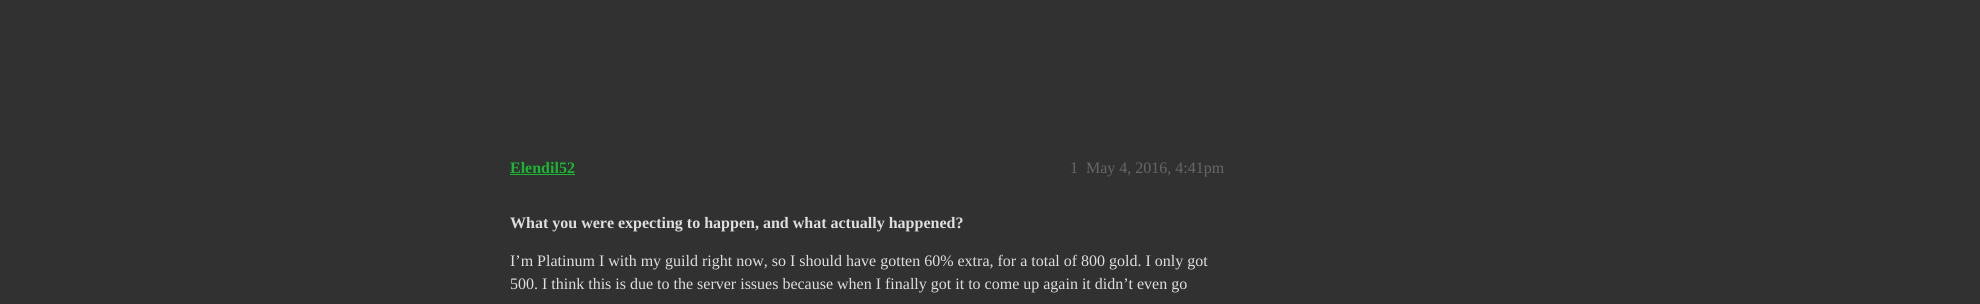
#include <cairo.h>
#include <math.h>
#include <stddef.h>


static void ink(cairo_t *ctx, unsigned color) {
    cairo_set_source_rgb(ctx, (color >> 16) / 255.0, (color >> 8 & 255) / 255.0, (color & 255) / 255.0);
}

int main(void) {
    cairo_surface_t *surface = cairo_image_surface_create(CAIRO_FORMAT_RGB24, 1980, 304);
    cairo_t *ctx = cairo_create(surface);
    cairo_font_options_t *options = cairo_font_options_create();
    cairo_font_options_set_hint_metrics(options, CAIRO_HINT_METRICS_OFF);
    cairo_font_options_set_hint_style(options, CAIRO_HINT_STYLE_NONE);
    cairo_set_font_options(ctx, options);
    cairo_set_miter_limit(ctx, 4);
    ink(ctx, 0x313131);
    cairo_paint(ctx);
    cairo_select_font_face(ctx, "Liberation Serif", CAIRO_FONT_SLANT_NORMAL, CAIRO_FONT_WEIGHT_BOLD);
    cairo_set_font_size(ctx, 16);
    ink(ctx, 0x1BB632);
    cairo_move_to(ctx, 510, 173);
    cairo_show_text(ctx, "Elendil52");
    cairo_rectangle(ctx, 510, 174, 65, 1);
    cairo_fill(ctx);
    cairo_select_font_face(ctx, "Liberation Serif", CAIRO_FONT_SLANT_NORMAL, CAIRO_FONT_WEIGHT_NORMAL);
    ink(ctx, 0x666666);
    cairo_move_to(ctx, 1070, 173);
    cairo_show_text(ctx, "1");
    cairo_move_to(ctx, 1086, 173);
    cairo_show_text(ctx, "May 4, 2016, 4:41pm");
    cairo_select_font_face(ctx, "Liberation Serif", CAIRO_FONT_SLANT_NORMAL, CAIRO_FONT_WEIGHT_BOLD);
    ink(ctx, 0xDEDEDE);
    cairo_move_to(ctx, 510, 228);
    cairo_show_text(ctx, "What you were expecting to happen, and what actually happened?");
    cairo_select_font_face(ctx, "Liberation Serif", CAIRO_FONT_SLANT_NORMAL, CAIRO_FONT_WEIGHT_NORMAL);
    cairo_move_to(ctx, 510, 266);
    cairo_show_text(ctx, "I’m Platinum I with my guild right now, so I should have gotten 60% extra, for a total of 800 gold. I only got");
    cairo_move_to(ctx, 510, 289);
    cairo_show_text(ctx, "500. I think this is due to the server issues because when I finally got it to come up again it didn’t even go");
    cairo_surface_write_to_png(surface, "image.png");
    cairo_font_options_destroy(options);
    cairo_destroy(ctx);
    cairo_surface_destroy(surface);
    return 0;
}
